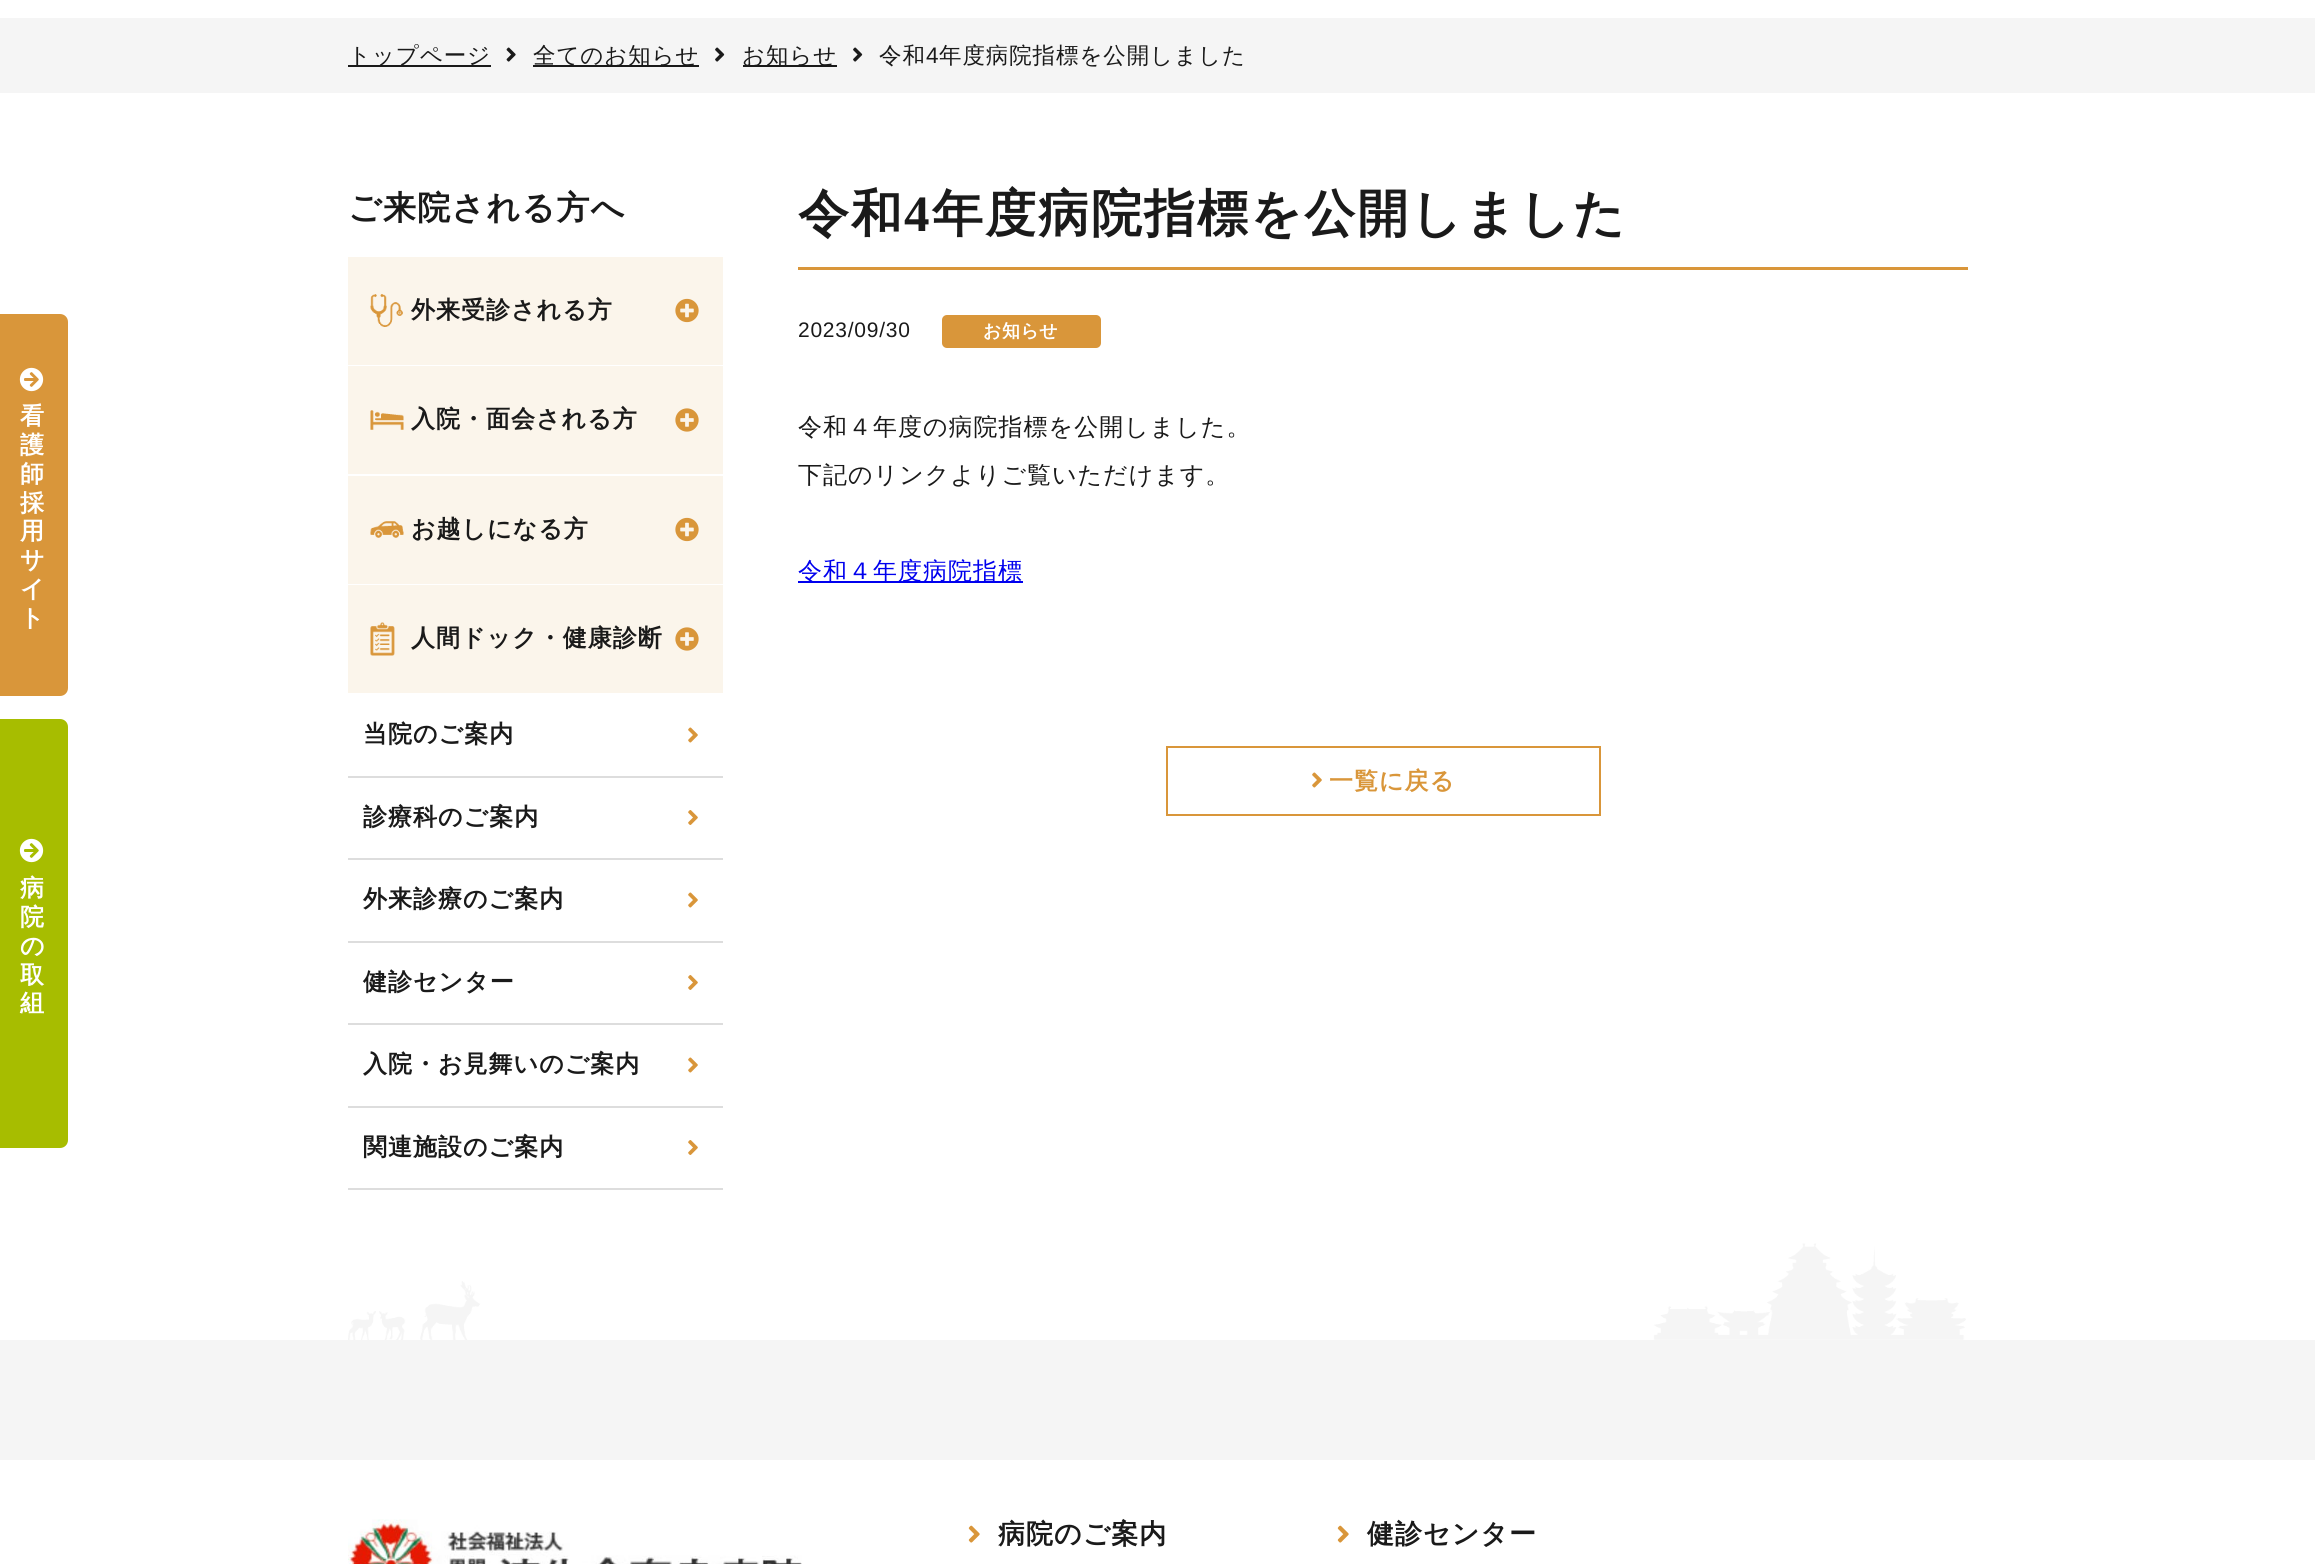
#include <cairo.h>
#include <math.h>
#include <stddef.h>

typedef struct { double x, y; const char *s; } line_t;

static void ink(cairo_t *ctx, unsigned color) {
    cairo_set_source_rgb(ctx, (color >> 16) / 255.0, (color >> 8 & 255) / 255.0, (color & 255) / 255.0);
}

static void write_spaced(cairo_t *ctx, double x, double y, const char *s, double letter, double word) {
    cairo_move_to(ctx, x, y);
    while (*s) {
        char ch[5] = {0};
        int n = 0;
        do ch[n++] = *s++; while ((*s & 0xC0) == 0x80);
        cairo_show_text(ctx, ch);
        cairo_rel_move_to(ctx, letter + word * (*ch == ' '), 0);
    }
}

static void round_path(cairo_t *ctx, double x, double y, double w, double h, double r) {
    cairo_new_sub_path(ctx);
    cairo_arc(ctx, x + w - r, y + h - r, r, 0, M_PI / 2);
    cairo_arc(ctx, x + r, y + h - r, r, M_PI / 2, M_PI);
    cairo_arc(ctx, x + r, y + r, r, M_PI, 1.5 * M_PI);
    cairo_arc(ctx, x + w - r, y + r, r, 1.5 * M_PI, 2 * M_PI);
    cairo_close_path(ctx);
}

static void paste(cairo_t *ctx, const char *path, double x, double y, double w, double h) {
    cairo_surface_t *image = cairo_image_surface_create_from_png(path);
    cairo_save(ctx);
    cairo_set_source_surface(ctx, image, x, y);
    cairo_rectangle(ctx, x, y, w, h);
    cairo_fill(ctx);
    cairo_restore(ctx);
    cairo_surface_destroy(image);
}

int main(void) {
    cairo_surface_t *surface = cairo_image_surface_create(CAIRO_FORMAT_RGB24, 2315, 1564);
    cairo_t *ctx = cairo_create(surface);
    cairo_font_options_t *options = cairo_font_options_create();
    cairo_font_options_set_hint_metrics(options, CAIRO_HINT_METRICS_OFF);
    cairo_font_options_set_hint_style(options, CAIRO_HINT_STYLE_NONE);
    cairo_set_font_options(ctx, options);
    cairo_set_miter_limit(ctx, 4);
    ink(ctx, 0xFFFFFF);
    cairo_paint(ctx);
    ink(ctx, 0xF5F5F5);
    cairo_rectangle(ctx, 0, 18, 2315, 75);
    cairo_fill(ctx);
    ink(ctx, 0x1A1A1A);
    cairo_rectangle(ctx, 348, 65, 143, 2);
    cairo_fill(ctx);
    cairo_select_font_face(ctx, "WenQuanYi Zen Hei Medium", CAIRO_FONT_SLANT_NORMAL, CAIRO_FONT_WEIGHT_NORMAL);
    cairo_set_font_size(ctx, 22.5);
    write_spaced(ctx, 348, 63, "トップページ", 0.9, 0);
    paste(ctx, "media/1.png", 506, 47, 10, 15);
    cairo_rectangle(ctx, 533, 65, 166, 2);
    cairo_fill(ctx);
    write_spaced(ctx, 533, 63, "全てのお知らせ", 0.9, 0);
    paste(ctx, "media/2.png", 715, 47, 10, 15);
    cairo_rectangle(ctx, 743, 65, 94, 2);
    cairo_fill(ctx);
    write_spaced(ctx, 742, 63, "お知らせ", 0.9, 0);
    paste(ctx, "media/2.png", 853, 47, 10, 15);
    write_spaced(ctx, 879, 63, "令和", 0.9, 0);
    cairo_select_font_face(ctx, "Liberation Sans", CAIRO_FONT_SLANT_NORMAL, CAIRO_FONT_WEIGHT_NORMAL);
    write_spaced(ctx, 926, 63, "4", 0.9, 0);
    cairo_select_font_face(ctx, "WenQuanYi Zen Hei Medium", CAIRO_FONT_SLANT_NORMAL, CAIRO_FONT_WEIGHT_NORMAL);
    write_spaced(ctx, 939, 63, "年度病院指標を公開しました", 0.9, 0);
    ink(ctx, 0xD9963A);
    cairo_new_path(ctx);
    cairo_move_to(ctx, 0, 314);
    cairo_line_to(ctx, 60, 314);
    cairo_curve_to(ctx, 64.5, 314, 68, 317.5, 68, 322);
    cairo_line_to(ctx, 68, 688);
    cairo_curve_to(ctx, 68, 692.5, 64.5, 696, 60, 696);
    cairo_line_to(ctx, 0, 696);
    cairo_close_path(ctx);
    cairo_fill(ctx);
    paste(ctx, "media/3.png", 19, 367, 25, 25);
    cairo_select_font_face(ctx, "WenQuanYi Zen Hei", CAIRO_FONT_SLANT_NORMAL, CAIRO_FONT_WEIGHT_BOLD);
    cairo_set_font_size(ctx, 24);
    ink(ctx, 0xFFFFFF);
    {
        static const line_t items[] = {
            {20, 424, "看"},
            {20, 453, "護"},
            {20, 482, "師"},
            {20, 511, "採"},
            {20, 539, "用"},
            {20, 568, "サ"},
            {20, 597, "イ"},
            {20, 626, "ト"},
        };
        for (size_t i = 0; i < sizeof items / sizeof *items; i++) {
            write_spaced(ctx, items[i].x, items[i].y, items[i].s, 1, 0);
        }
    }
    ink(ctx, 0xA7BD00);
    cairo_new_path(ctx);
    cairo_move_to(ctx, 0, 719);
    cairo_line_to(ctx, 60, 719);
    cairo_curve_to(ctx, 64.5, 719, 68, 722.5, 68, 727);
    cairo_line_to(ctx, 68, 1140);
    cairo_curve_to(ctx, 68, 1144.5, 64.5, 1148, 60, 1148);
    cairo_line_to(ctx, 0, 1148);
    cairo_close_path(ctx);
    cairo_fill(ctx);
    paste(ctx, "media/4.png", 19, 838, 25, 25);
    ink(ctx, 0xFFFFFF);
    {
        static const line_t items[] = {
            {20, 896, "病"},
            {20, 925, "院"},
            {20, 954, "の"},
            {20, 983, "取"},
            {20, 1011, "組"},
        };
        for (size_t i = 0; i < sizeof items / sizeof *items; i++) {
            write_spaced(ctx, items[i].x, items[i].y, items[i].s, 1, 0);
        }
    }
    cairo_set_font_size(ctx, 33);
    ink(ctx, 0x1A1A1A);
    write_spaced(ctx, 348, 219, "ご来院される方へ", 1.25, 0);
    ink(ctx, 0xFBF5EB);
    cairo_rectangle(ctx, 348, 257, 375, 108);
    cairo_fill(ctx);
    paste(ctx, "media/5.png", 370, 294, 33, 33);
    cairo_set_font_size(ctx, 24);
    ink(ctx, 0x1A1A1A);
    write_spaced(ctx, 411, 318, "外来受診される方", 1, 0);
    paste(ctx, "media/6.png", 675, 298, 24, 25);
    ink(ctx, 0xFBF5EB);
    cairo_rectangle(ctx, 348, 366, 375, 108);
    cairo_fill(ctx);
    paste(ctx, "media/7.png", 370, 410, 34, 20);
    ink(ctx, 0x1A1A1A);
    write_spaced(ctx, 411, 427, "入院・面会される方", 1, 0);
    paste(ctx, "media/8.png", 675, 408, 24, 24);
    ink(ctx, 0xFBF5EB);
    cairo_rectangle(ctx, 348, 476, 375, 108);
    cairo_fill(ctx);
    paste(ctx, "media/9.png", 370, 521, 34, 17);
    ink(ctx, 0x1A1A1A);
    write_spaced(ctx, 411, 537, "お越しになる方", 1, 0);
    paste(ctx, "media/6.png", 675, 517, 24, 25);
    ink(ctx, 0xFBF5EB);
    cairo_rectangle(ctx, 348, 585, 375, 108);
    cairo_fill(ctx);
    paste(ctx, "media/10.png", 370, 622, 25, 34);
    ink(ctx, 0x1A1A1A);
    write_spaced(ctx, 411, 646, "人間ドック・健康診断", 1, 0);
    paste(ctx, "media/8.png", 675, 627, 24, 24);
    ink(ctx, 0xDDDDDD);
    cairo_rectangle(ctx, 348, 776, 375, 2);
    cairo_fill(ctx);
    ink(ctx, 0x1A1A1A);
    write_spaced(ctx, 363, 742, "当院のご案内", 1, 0);
    paste(ctx, "media/11.png", 688, 727, 10, 16);
    ink(ctx, 0xDDDDDD);
    cairo_rectangle(ctx, 348, 858, 375, 2);
    cairo_fill(ctx);
    ink(ctx, 0x1A1A1A);
    write_spaced(ctx, 363, 825, "診療科のご案内", 1, 0);
    paste(ctx, "media/12.png", 688, 810, 10, 15);
    ink(ctx, 0xDDDDDD);
    cairo_rectangle(ctx, 348, 941, 375, 2);
    cairo_fill(ctx);
    ink(ctx, 0x1A1A1A);
    write_spaced(ctx, 363, 907, "外来診療のご案内", 1, 0);
    paste(ctx, "media/11.png", 688, 892, 10, 16);
    ink(ctx, 0xDDDDDD);
    cairo_rectangle(ctx, 348, 1023, 375, 2);
    cairo_fill(ctx);
    ink(ctx, 0x1A1A1A);
    write_spaced(ctx, 363, 990, "健診センター", 1, 0);
    paste(ctx, "media/12.png", 688, 975, 10, 15);
    ink(ctx, 0xDDDDDD);
    cairo_rectangle(ctx, 348, 1106, 375, 2);
    cairo_fill(ctx);
    ink(ctx, 0x1A1A1A);
    write_spaced(ctx, 363, 1072, "入院・お見舞いのご案内", 1, 0);
    paste(ctx, "media/11.png", 688, 1057, 10, 16);
    ink(ctx, 0xDDDDDD);
    cairo_rectangle(ctx, 348, 1188, 375, 2);
    cairo_fill(ctx);
    ink(ctx, 0x1A1A1A);
    write_spaced(ctx, 363, 1155, "関連施設のご案内", 1, 0);
    paste(ctx, "media/12.png", 688, 1140, 10, 15);
    ink(ctx, 0xD9963A);
    cairo_rectangle(ctx, 798, 267, 1170, 3);
    cairo_fill(ctx);
    cairo_set_font_size(ctx, 51);
    ink(ctx, 0x1A1A1A);
    write_spaced(ctx, 798, 231, "令和", 2, 0);
    cairo_select_font_face(ctx, "Liberation Serif", CAIRO_FONT_SLANT_NORMAL, CAIRO_FONT_WEIGHT_BOLD);
    write_spaced(ctx, 904, 231, "4", 2, 0);
    cairo_select_font_face(ctx, "WenQuanYi Zen Hei", CAIRO_FONT_SLANT_NORMAL, CAIRO_FONT_WEIGHT_BOLD);
    write_spaced(ctx, 932, 231, "年度病院指標を公開しました", 2, 0);
    cairo_select_font_face(ctx, "Liberation Sans", CAIRO_FONT_SLANT_NORMAL, CAIRO_FONT_WEIGHT_NORMAL);
    cairo_set_font_size(ctx, 21);
    write_spaced(ctx, 798, 337, "2023/09/30", 0.75, 0);
    ink(ctx, 0xD9963A);
    round_path(ctx, 942, 315, 159, 33, 5);
    cairo_fill(ctx);
    cairo_select_font_face(ctx, "WenQuanYi Zen Hei", CAIRO_FONT_SLANT_NORMAL, CAIRO_FONT_WEIGHT_BOLD);
    cairo_set_font_size(ctx, 18);
    ink(ctx, 0xFFFFFF);
    write_spaced(ctx, 983, 337, "お知らせ", 0.5, 0);
    cairo_select_font_face(ctx, "WenQuanYi Zen Hei Medium", CAIRO_FONT_SLANT_NORMAL, CAIRO_FONT_WEIGHT_NORMAL);
    cairo_set_font_size(ctx, 24);
    ink(ctx, 0x1A1A1A);
    write_spaced(ctx, 798, 435, "令和４年度の病院指標を公開しました。", 1, 0);
    write_spaced(ctx, 798, 483, "下記のリンクよりご覧いただけます。", 1, 0);
    ink(ctx, 0x0000EE);
    cairo_rectangle(ctx, 798, 581, 225, 2);
    cairo_fill(ctx);
    write_spaced(ctx, 798, 579, "令和４年度病院指標", 1, 0);
    cairo_rectangle(ctx, 1167, 747, 433, 68);
    ink(ctx, 0xD9963A);
    cairo_stroke(ctx);
    paste(ctx, "media/11.png", 1312, 772, 10, 16);
    cairo_select_font_face(ctx, "WenQuanYi Zen Hei", CAIRO_FONT_SLANT_NORMAL, CAIRO_FONT_WEIGHT_BOLD);
    write_spaced(ctx, 1329, 789, "一覧に戻る", 1, 0);
    ink(ctx, 0xF5F5F5);
    cairo_rectangle(ctx, 0, 1340, 2315, 120);
    cairo_fill(ctx);
    paste(ctx, "media/13.png", 348, 1243, 1618, 97);
    paste(ctx, "media/14.png", 348, 1519, 454, 45);
    paste(ctx, "media/15.png", 968, 1525, 12, 18);
    cairo_set_font_size(ctx, 27);
    ink(ctx, 0x1A1A1A);
    write_spaced(ctx, 998, 1543, "病院のご案内", 1, 0);
    paste(ctx, "media/15.png", 1337, 1525, 12, 18);
    write_spaced(ctx, 1367, 1543, "健診センター", 1, 0);
    cairo_surface_write_to_png(surface, "image.png");
    cairo_font_options_destroy(options);
    cairo_destroy(ctx);
    cairo_surface_destroy(surface);
    return 0;
}
